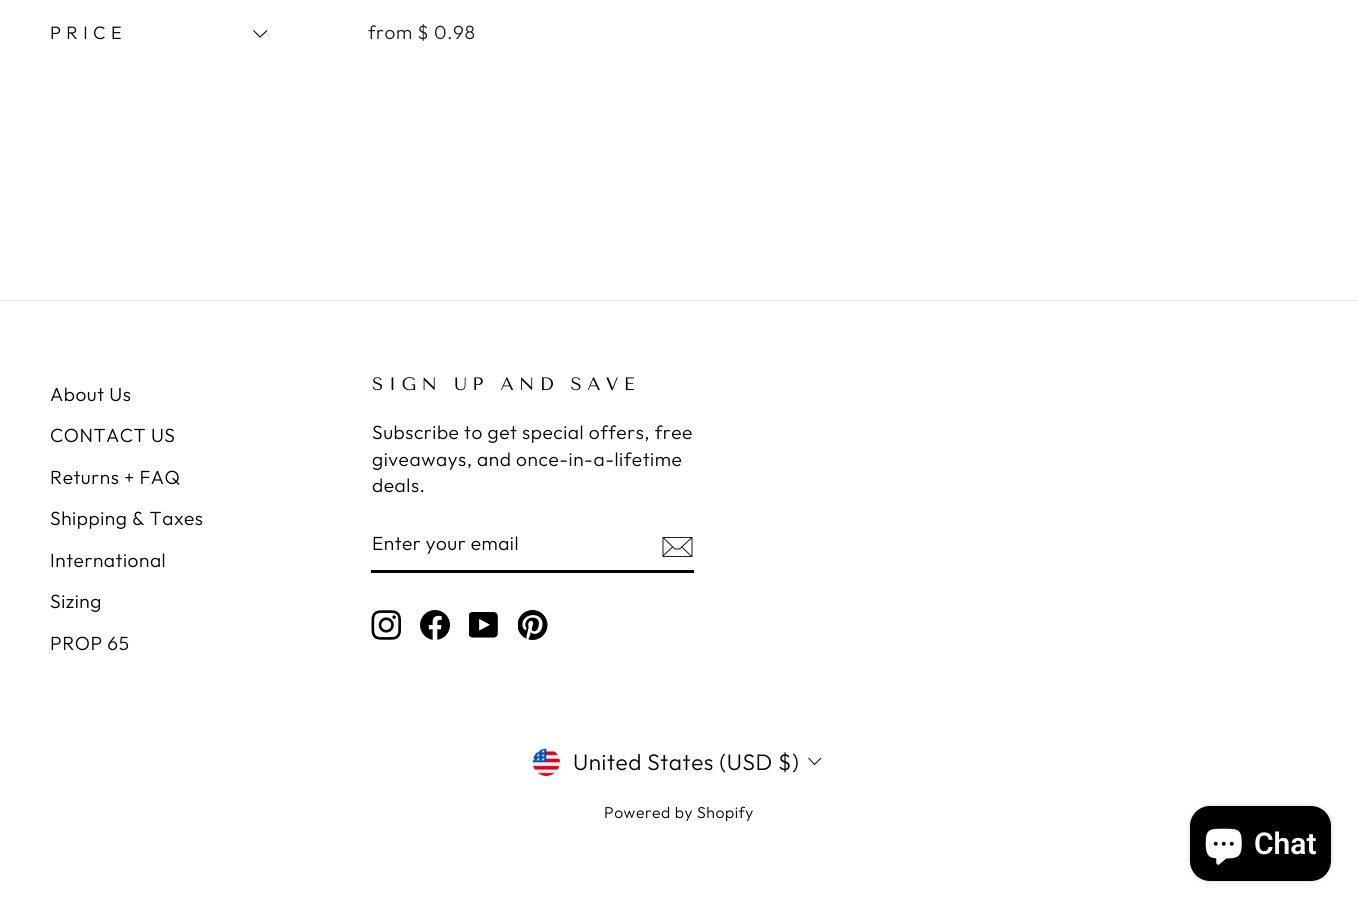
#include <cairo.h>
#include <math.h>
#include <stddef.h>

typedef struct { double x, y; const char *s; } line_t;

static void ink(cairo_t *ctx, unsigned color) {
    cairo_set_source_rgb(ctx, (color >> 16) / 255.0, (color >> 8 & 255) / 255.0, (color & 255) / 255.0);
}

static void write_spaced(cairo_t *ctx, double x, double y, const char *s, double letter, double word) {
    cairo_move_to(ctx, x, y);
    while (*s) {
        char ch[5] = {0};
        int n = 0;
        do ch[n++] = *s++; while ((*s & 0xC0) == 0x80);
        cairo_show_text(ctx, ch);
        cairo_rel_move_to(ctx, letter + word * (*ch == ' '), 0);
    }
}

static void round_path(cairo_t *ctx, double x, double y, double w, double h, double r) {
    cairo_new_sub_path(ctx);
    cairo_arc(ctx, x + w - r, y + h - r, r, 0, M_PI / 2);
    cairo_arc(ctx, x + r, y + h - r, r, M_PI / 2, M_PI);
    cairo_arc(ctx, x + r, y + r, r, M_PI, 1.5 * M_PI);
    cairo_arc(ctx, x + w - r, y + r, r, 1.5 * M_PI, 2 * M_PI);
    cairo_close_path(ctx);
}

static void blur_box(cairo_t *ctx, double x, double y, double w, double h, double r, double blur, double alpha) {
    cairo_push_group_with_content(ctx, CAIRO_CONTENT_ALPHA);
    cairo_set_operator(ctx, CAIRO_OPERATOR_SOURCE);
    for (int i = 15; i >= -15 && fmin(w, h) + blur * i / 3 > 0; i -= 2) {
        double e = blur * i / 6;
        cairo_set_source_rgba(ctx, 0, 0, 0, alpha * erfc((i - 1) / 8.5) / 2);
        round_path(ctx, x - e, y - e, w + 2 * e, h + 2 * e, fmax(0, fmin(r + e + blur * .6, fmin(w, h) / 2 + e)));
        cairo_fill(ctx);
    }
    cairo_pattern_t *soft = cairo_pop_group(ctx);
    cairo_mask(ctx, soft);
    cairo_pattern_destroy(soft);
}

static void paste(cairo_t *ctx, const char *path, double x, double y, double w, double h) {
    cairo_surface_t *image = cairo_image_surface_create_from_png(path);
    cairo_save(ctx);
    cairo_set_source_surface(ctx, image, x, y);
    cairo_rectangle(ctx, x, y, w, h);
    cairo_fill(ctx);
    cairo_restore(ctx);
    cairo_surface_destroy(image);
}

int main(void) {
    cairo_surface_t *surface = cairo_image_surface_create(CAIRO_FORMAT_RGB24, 1358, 907);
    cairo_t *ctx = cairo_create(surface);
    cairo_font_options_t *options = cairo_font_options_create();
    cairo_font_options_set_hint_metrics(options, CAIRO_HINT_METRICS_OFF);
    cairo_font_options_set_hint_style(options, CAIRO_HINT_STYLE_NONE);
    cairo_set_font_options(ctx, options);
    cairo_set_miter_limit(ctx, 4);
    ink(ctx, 0xFFFFFF);
    cairo_paint(ctx);
    cairo_select_font_face(ctx, "Outfit Light", CAIRO_FONT_SLANT_NORMAL, CAIRO_FONT_WEIGHT_NORMAL);
    cairo_set_font_size(ctx, 18);
    ink(ctx, 0x000000);
    write_spaced(ctx, 50, 39, "PRICE", 5.4, 0);
    cairo_new_path(ctx);
    cairo_move_to(ctx, 253.5, 30.5);
    cairo_line_to(ctx, 260, 37);
    cairo_line_to(ctx, 267, 30.5);
    cairo_set_line_width(ctx, 1.1);
    cairo_stroke(ctx);
    cairo_set_font_size(ctx, 19.1);
    ink(ctx, 0x1C1D1D);
    write_spaced(ctx, 368, 39, "from $ 0.98", 0.55, 0);
    ink(ctx, 0xE8E8E1);
    cairo_rectangle(ctx, 0, 300, 1358, 1);
    cairo_fill(ctx);
    ink(ctx, 0x000000);
    {
        static const line_t items[] = {
            {50, 401, "About Us"},
            {50, 442, "CONTACT US"},
            {50, 484, "Returns + FAQ"},
            {50, 525, "Shipping & Taxes"},
            {50, 567, "International"},
            {50, 608, "Sizing"},
            {50, 650, "PROP 65"},
        };
        for (size_t i = 0; i < sizeof items / sizeof *items; i++) {
            write_spaced(ctx, items[i].x, items[i].y, items[i].s, 0.55, 0);
        }
    }
    cairo_select_font_face(ctx, "Tenor Sans", CAIRO_FONT_SLANT_NORMAL, CAIRO_FONT_WEIGHT_NORMAL);
    cairo_set_font_size(ctx, 18);
    write_spaced(ctx, 372, 390, "SIGN UP AND SAVE", 5.4, 0);
    cairo_select_font_face(ctx, "Outfit Light", CAIRO_FONT_SLANT_NORMAL, CAIRO_FONT_WEIGHT_NORMAL);
    cairo_set_font_size(ctx, 19.1);
    {
        static const line_t items[] = {
            {372, 439, "Subscribe to get special offers, free"},
            {372, 466, "giveaways, and once-in-a-lifetime"},
            {372, 492, "deals."},
        };
        for (size_t i = 0; i < sizeof items / sizeof *items; i++) {
            write_spaced(ctx, items[i].x, items[i].y, items[i].s, 0.55, 0);
        }
    }
    cairo_rectangle(ctx, 371, 570, 323, 3);
    cairo_fill(ctx);
    write_spaced(ctx, 372, 550, "Enter your email", 0.5, 0);
    cairo_new_path(ctx);
    cairo_move_to(ctx, 692, 556.5);
    cairo_line_to(ctx, 663, 556.5);
    cairo_line_to(ctx, 663, 537.5);
    cairo_line_to(ctx, 692, 537.5);
    cairo_close_path(ctx);
    cairo_move_to(ctx, 663, 537.5);
    cairo_line_to(ctx, 675, 549);
    cairo_line_to(ctx, 679.5, 549);
    cairo_line_to(ctx, 692, 537.5);
    cairo_move_to(ctx, 672.5, 547);
    cairo_line_to(ctx, 663, 556);
    cairo_move_to(ctx, 691.5, 556.5);
    cairo_line_to(ctx, 682, 547);
    cairo_set_line_width(ctx, 0.9);
    cairo_stroke(ctx);
    paste(ctx, "media/1.png", 371, 610, 30, 30);
    paste(ctx, "media/2.png", 420, 610, 30, 30);
    paste(ctx, "media/3.png", 469, 612, 29, 26);
    paste(ctx, "media/4.png", 518, 610, 30, 30);
    paste(ctx, "media/5.png", 532, 748, 28, 28);
    cairo_set_font_size(ctx, 22.5);
    write_spaced(ctx, 573, 770, "United States (USD $)", 0.55, 0);
    cairo_new_path(ctx);
    cairo_move_to(ctx, 808.5, 758);
    cairo_line_to(ctx, 814.5, 764.5);
    cairo_line_to(ctx, 821, 758);
    cairo_set_line_width(ctx, 1);
    cairo_stroke(ctx);
    cairo_set_font_size(ctx, 15.75);
    write_spaced(ctx, 604, 818, "Powered by Shopify", 0.55, 0);
    ink(ctx, 0x000000);
    blur_box(ctx, 1190, 806, 141, 75, 20, 3, 0.15);
    ink(ctx, 0x000000);
    round_path(ctx, 1190, 806, 141, 75, 20);
    cairo_fill(ctx);
    paste(ctx, "media/6.png", 1205, 828, 37, 37);
    cairo_select_font_face(ctx, "Roboto SemiBold", CAIRO_FONT_SLANT_NORMAL, CAIRO_FONT_WEIGHT_NORMAL);
    cairo_set_font_size(ctx, 30);
    ink(ctx, 0xFFFFFF);
    cairo_move_to(ctx, 1254, 854);
    cairo_show_text(ctx, "Chat");
    cairo_surface_write_to_png(surface, "image.png");
    cairo_font_options_destroy(options);
    cairo_destroy(ctx);
    cairo_surface_destroy(surface);
    return 0;
}
